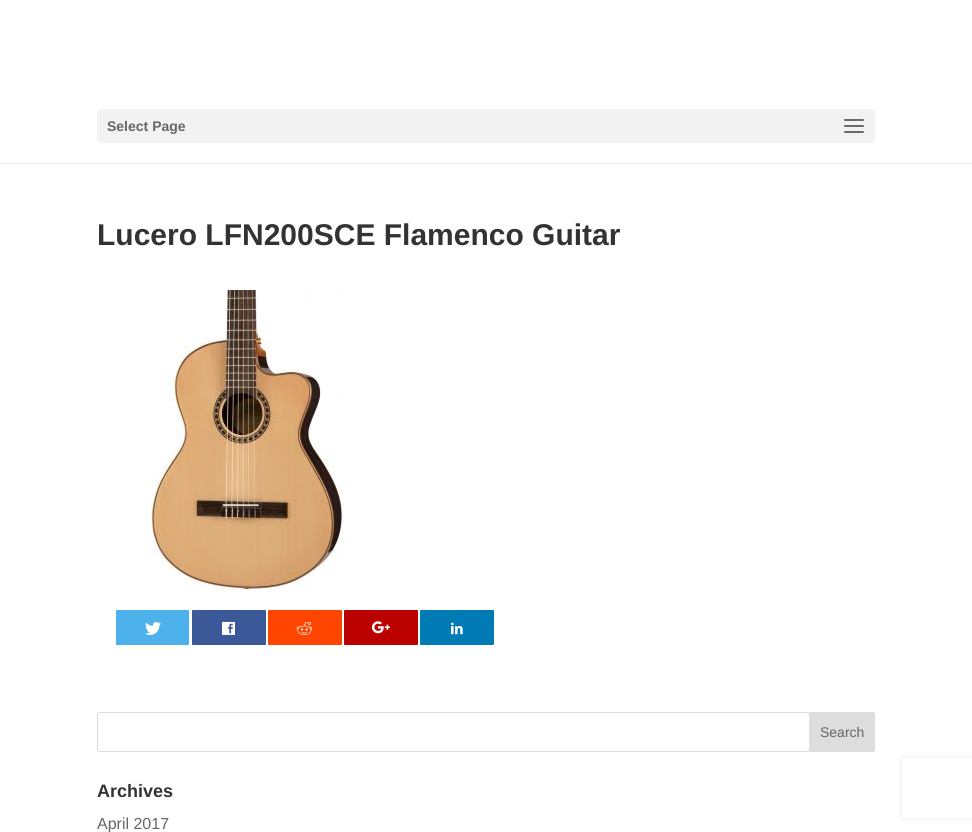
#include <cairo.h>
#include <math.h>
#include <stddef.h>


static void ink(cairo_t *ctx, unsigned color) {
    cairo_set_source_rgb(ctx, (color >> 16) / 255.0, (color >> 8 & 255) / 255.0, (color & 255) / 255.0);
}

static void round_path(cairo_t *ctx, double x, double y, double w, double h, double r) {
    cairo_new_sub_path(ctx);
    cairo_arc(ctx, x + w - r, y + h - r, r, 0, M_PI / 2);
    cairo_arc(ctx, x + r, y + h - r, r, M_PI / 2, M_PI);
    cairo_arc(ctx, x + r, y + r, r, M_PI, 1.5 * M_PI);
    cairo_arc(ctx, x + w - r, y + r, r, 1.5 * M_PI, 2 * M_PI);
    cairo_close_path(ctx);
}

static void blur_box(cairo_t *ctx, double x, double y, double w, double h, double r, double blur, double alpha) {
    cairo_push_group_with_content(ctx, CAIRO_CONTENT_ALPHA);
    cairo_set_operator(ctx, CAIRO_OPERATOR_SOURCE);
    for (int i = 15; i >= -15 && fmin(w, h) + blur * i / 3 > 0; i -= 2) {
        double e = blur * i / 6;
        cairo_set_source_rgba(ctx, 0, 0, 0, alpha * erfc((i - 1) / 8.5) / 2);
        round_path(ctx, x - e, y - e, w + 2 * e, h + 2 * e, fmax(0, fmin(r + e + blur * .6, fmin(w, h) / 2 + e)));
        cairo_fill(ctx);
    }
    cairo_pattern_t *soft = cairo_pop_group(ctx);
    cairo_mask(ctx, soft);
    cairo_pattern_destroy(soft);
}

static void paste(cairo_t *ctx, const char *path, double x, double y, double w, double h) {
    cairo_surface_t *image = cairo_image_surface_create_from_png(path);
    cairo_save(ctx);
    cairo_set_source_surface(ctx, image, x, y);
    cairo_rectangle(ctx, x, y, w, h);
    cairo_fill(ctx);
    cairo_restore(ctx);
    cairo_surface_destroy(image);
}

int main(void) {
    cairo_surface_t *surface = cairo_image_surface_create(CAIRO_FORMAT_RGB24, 972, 832);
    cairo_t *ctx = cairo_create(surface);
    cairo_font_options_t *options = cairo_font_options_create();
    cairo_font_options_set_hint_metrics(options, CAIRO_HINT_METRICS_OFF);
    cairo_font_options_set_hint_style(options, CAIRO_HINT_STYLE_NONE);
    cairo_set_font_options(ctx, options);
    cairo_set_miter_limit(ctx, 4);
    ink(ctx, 0xFFFFFF);
    cairo_paint(ctx);
    ink(ctx, 0xE6E6E6);
    cairo_rectangle(ctx, 0, 163, 972, 1);
    cairo_fill(ctx);
    ink(ctx, 0xF2F2F2);
    round_path(ctx, 97, 109, 778, 34, 5);
    cairo_fill(ctx);
    cairo_select_font_face(ctx, "Liberation Sans", CAIRO_FONT_SLANT_NORMAL, CAIRO_FONT_WEIGHT_BOLD);
    cairo_set_font_size(ctx, 14);
    ink(ctx, 0x666666);
    cairo_move_to(ctx, 107, 131);
    cairo_show_text(ctx, "Select Page");
    paste(ctx, "media/1.png", 844, 119, 20, 14);
    cairo_set_font_size(ctx, 30);
    ink(ctx, 0x333333);
    cairo_move_to(ctx, 97, 245);
    cairo_show_text(ctx, "Lucero LFN200SCE Flamenco Guitar");
    paste(ctx, "media/2.png", 145, 290, 200, 300);
    ink(ctx, 0x4DB2EC);
    round_path(ctx, 116, 610, 73, 35, 1);
    cairo_fill(ctx);
    paste(ctx, "media/3.png", 145, 622, 16, 13);
    ink(ctx, 0x3B5998);
    round_path(ctx, 192, 610, 74, 35, 1);
    cairo_fill(ctx);
    paste(ctx, "media/4.png", 222, 621, 13, 14);
    ink(ctx, 0xFF4500);
    round_path(ctx, 268, 610, 74, 35, 1);
    cairo_fill(ctx);
    paste(ctx, "media/5.png", 296, 622, 17, 13);
    ink(ctx, 0xBB0000);
    round_path(ctx, 344, 610, 74, 35, 1);
    cairo_fill(ctx);
    paste(ctx, "media/6.png", 372, 621, 18, 13);
    ink(ctx, 0x007BB6);
    round_path(ctx, 420, 610, 74, 35, 1);
    cairo_fill(ctx);
    paste(ctx, "media/7.png", 451, 622, 12, 13);
    round_path(ctx, 97.5, 712.5, 777, 39, 2.5);
    ink(ctx, 0xDDDDDD);
    cairo_set_line_width(ctx, 1);
    cairo_stroke(ctx);
    cairo_new_path(ctx);
    cairo_move_to(ctx, 809.5, 712.5);
    cairo_line_to(ctx, 872, 712.5);
    cairo_curve_to(ctx, 873.5, 712.5, 874.5, 713.5, 874.5, 715);
    cairo_line_to(ctx, 874.5, 749);
    cairo_curve_to(ctx, 874.5, 750.5, 873.5, 751.5, 872, 751.5);
    cairo_line_to(ctx, 809.5, 751.5);
    cairo_close_path(ctx);
    cairo_fill_preserve(ctx);
    cairo_stroke(ctx);
    cairo_select_font_face(ctx, "Liberation Sans", CAIRO_FONT_SLANT_NORMAL, CAIRO_FONT_WEIGHT_NORMAL);
    cairo_set_font_size(ctx, 14);
    ink(ctx, 0x666666);
    cairo_move_to(ctx, 820, 737);
    cairo_show_text(ctx, "Search");
    cairo_select_font_face(ctx, "Liberation Sans", CAIRO_FONT_SLANT_NORMAL, CAIRO_FONT_WEIGHT_BOLD);
    cairo_set_font_size(ctx, 18);
    ink(ctx, 0x333333);
    cairo_move_to(ctx, 97, 797);
    cairo_show_text(ctx, "Archives");
    cairo_select_font_face(ctx, "Liberation Sans", CAIRO_FONT_SLANT_NORMAL, CAIRO_FONT_WEIGHT_NORMAL);
    cairo_set_font_size(ctx, 16);
    ink(ctx, 0x666666);
    cairo_move_to(ctx, 97, 829);
    cairo_show_text(ctx, "April 2017");
    cairo_save(ctx);
    cairo_set_fill_rule(ctx, CAIRO_FILL_RULE_EVEN_ODD);
    cairo_new_path(ctx);
    cairo_move_to(ctx, 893, 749);
    cairo_line_to(ctx, 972, 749);
    cairo_line_to(ctx, 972, 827);
    cairo_line_to(ctx, 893, 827);
    cairo_close_path(ctx);
    cairo_move_to(ctx, 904, 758);
    cairo_line_to(ctx, 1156, 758);
    cairo_curve_to(ctx, 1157, 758, 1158, 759, 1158, 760);
    cairo_line_to(ctx, 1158, 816);
    cairo_curve_to(ctx, 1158, 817, 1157, 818, 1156, 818);
    cairo_line_to(ctx, 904, 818);
    cairo_curve_to(ctx, 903, 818, 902, 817, 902, 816);
    cairo_line_to(ctx, 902, 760);
    cairo_curve_to(ctx, 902, 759, 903, 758, 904, 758);
    cairo_close_path(ctx);
    cairo_clip(ctx);
    ink(ctx, 0xE6E6E6);
    blur_box(ctx, 902, 758, 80, 60, 2, 2.5, 1);
    cairo_restore(ctx);
    cairo_surface_write_to_png(surface, "image.png");
    cairo_font_options_destroy(options);
    cairo_destroy(ctx);
    cairo_surface_destroy(surface);
    return 0;
}
